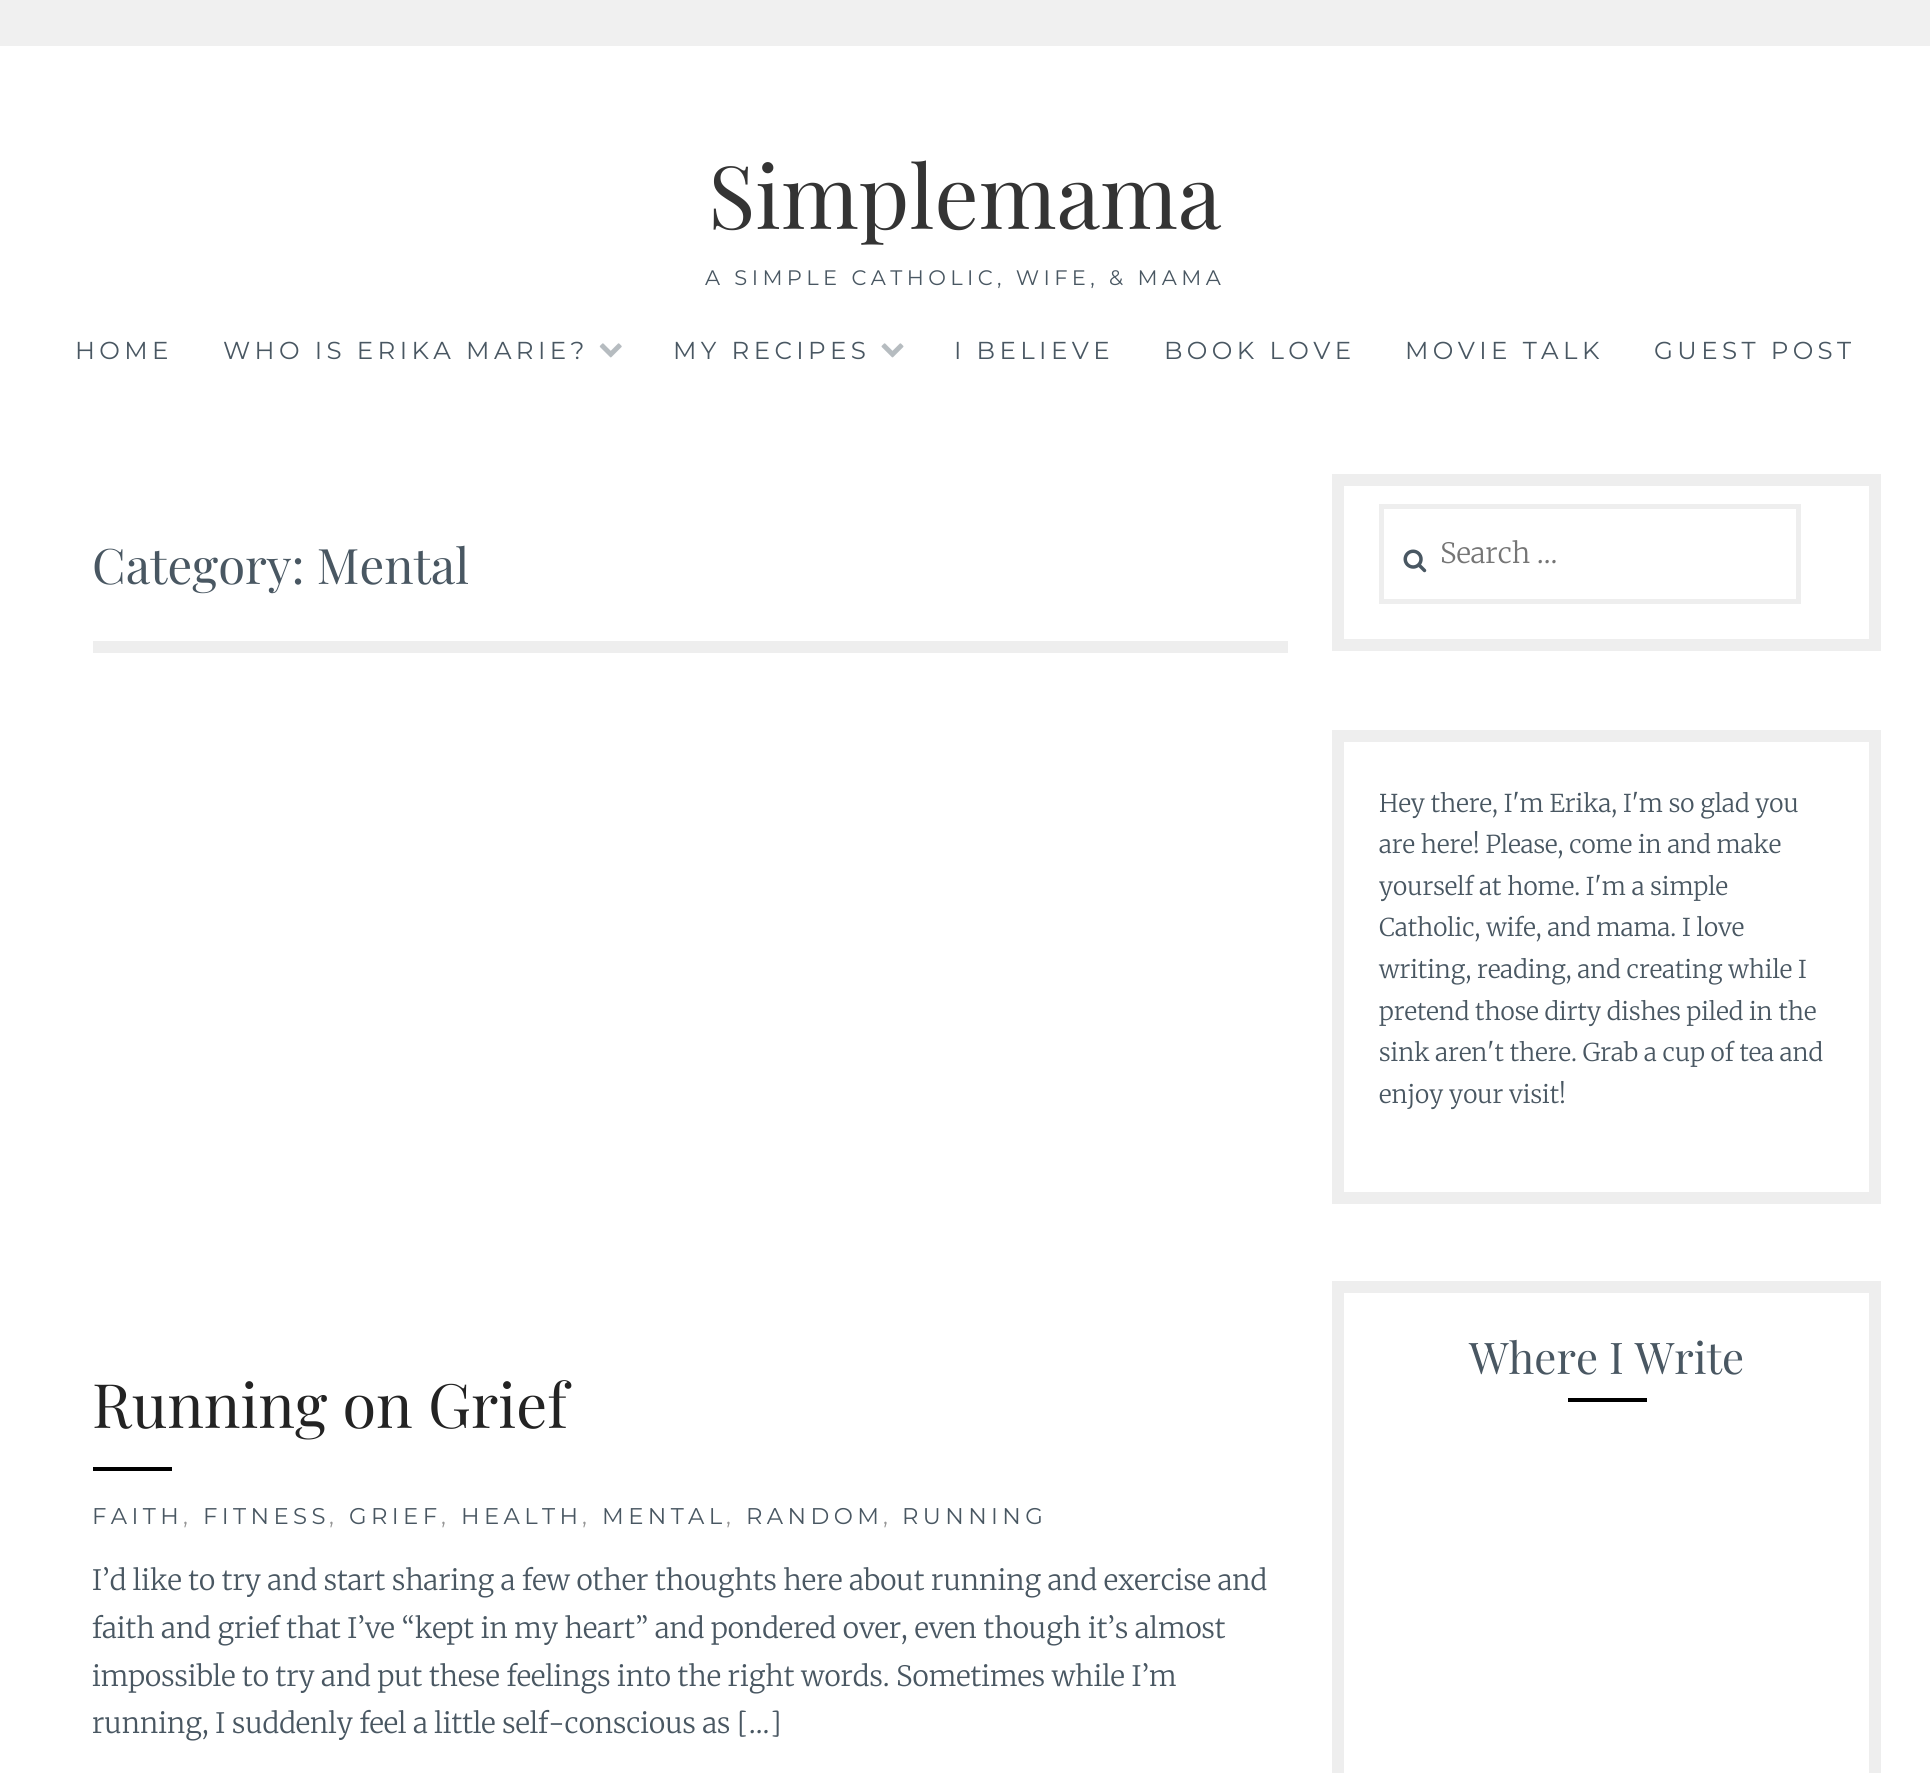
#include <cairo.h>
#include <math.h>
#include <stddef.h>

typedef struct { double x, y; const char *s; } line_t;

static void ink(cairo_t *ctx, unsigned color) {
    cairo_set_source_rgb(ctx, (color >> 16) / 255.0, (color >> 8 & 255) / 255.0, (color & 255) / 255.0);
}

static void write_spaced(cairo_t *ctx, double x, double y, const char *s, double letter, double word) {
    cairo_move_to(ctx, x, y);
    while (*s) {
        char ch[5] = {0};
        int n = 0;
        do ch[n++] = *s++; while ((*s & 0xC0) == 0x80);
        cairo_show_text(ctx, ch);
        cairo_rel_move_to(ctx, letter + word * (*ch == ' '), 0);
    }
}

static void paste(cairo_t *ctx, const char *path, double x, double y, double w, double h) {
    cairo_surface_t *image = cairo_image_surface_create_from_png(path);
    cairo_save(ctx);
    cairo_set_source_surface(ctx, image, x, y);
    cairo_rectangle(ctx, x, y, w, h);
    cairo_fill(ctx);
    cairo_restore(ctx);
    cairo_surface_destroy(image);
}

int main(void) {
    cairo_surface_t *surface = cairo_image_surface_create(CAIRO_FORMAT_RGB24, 1930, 1773);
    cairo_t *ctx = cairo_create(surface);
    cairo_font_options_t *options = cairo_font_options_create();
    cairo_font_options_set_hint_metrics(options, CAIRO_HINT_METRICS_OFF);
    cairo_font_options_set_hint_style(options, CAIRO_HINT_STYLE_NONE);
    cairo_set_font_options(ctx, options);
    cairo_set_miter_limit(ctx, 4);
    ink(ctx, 0xFFFFFF);
    cairo_paint(ctx);
    ink(ctx, 0xF0F0F0);
    cairo_rectangle(ctx, 0, 0, 1930, 46);
    cairo_fill(ctx);
    cairo_select_font_face(ctx, "Playfair Display", CAIRO_FONT_SLANT_NORMAL, CAIRO_FONT_WEIGHT_NORMAL);
    cairo_set_font_size(ctx, 87.5);
    ink(ctx, 0x343434);
    cairo_move_to(ctx, 708, 229);
    cairo_show_text(ctx, "Simplemama");
    cairo_select_font_face(ctx, "Montserrat", CAIRO_FONT_SLANT_NORMAL, CAIRO_FONT_WEIGHT_NORMAL);
    cairo_set_font_size(ctx, 21);
    ink(ctx, 0x495762);
    write_spaced(ctx, 705, 285, "A SIMPLE CATHOLIC, WIFE, & MAMA", 4.4, 0);
    cairo_set_font_size(ctx, 24.5);
    write_spaced(ctx, 75, 359, "HOME", 4.4, 0);
    write_spaced(ctx, 223, 359, "WHO IS ERIKA MARIE?", 4.4, 0);
    paste(ctx, "media/1.png", 599, 343, 23, 15);
    write_spaced(ctx, 673, 359, "MY RECIPES", 4.4, 0);
    paste(ctx, "media/2.png", 881, 343, 23, 15);
    {
        static const line_t items[] = {
            {954, 359, "I BELIEVE"},
            {1164, 359, "BOOK LOVE"},
            {1405, 359, "MOVIE TALK"},
            {1654, 359, "GUEST POST"},
        };
        for (size_t i = 0; i < sizeof items / sizeof *items; i++) {
            write_spaced(ctx, items[i].x, items[i].y, items[i].s, 4.4, 0);
        }
    }
    ink(ctx, 0xEEEEEE);
    cairo_rectangle(ctx, 93, 641, 1195, 12);
    cairo_fill(ctx);
    cairo_select_font_face(ctx, "Playfair Display", CAIRO_FONT_SLANT_NORMAL, CAIRO_FONT_WEIGHT_NORMAL);
    cairo_set_font_size(ctx, 49);
    ink(ctx, 0x495762);
    cairo_move_to(ctx, 92, 584);
    cairo_show_text(ctx, "Category: Mental");
    cairo_set_font_size(ctx, 61.25);
    ink(ctx, 0x232323);
    cairo_move_to(ctx, 92, 1428);
    cairo_show_text(ctx, "Running on Grief");
    ink(ctx, 0x000000);
    cairo_rectangle(ctx, 93, 1467, 79, 4);
    cairo_fill(ctx);
    cairo_select_font_face(ctx, "Montserrat", CAIRO_FONT_SLANT_NORMAL, CAIRO_FONT_WEIGHT_NORMAL);
    cairo_set_font_size(ctx, 22.75);
    ink(ctx, 0x495762);
    write_spaced(ctx, 92, 1524, "FAITH", 4.4, 0);
    ink(ctx, 0x969696);
    write_spaced(ctx, 183, 1524, ",", 4.4, 0);
    ink(ctx, 0x495762);
    write_spaced(ctx, 203, 1524, "FITNESS", 4.4, 0);
    ink(ctx, 0x969696);
    write_spaced(ctx, 329, 1524, ",", 4.4, 0);
    ink(ctx, 0x495762);
    write_spaced(ctx, 349, 1524, "GRIEF", 4.4, 0);
    ink(ctx, 0x969696);
    write_spaced(ctx, 441, 1524, ",", 4.4, 0);
    ink(ctx, 0x495762);
    write_spaced(ctx, 461, 1524, "HEALTH", 4.4, 0);
    ink(ctx, 0x969696);
    write_spaced(ctx, 582, 1524, ",", 4.4, 0);
    ink(ctx, 0x495762);
    write_spaced(ctx, 602, 1524, "MENTAL", 4.4, 0);
    ink(ctx, 0x969696);
    write_spaced(ctx, 726, 1524, ",", 4.4, 0);
    ink(ctx, 0x495762);
    write_spaced(ctx, 746, 1524, "RANDOM", 4.4, 0);
    ink(ctx, 0x969696);
    write_spaced(ctx, 883, 1524, ",", 4.4, 0);
    ink(ctx, 0x495762);
    write_spaced(ctx, 902, 1524, "RUNNING", 4.4, 0);
    cairo_select_font_face(ctx, "Merriweather Light", CAIRO_FONT_SLANT_NORMAL, CAIRO_FONT_WEIGHT_NORMAL);
    cairo_set_font_size(ctx, 28);
    {
        static const line_t items[] = {
            {92, 1590, "I’d like to try and start sharing a few other thoughts here about running and exercise and"},
            {92, 1638, "faith and grief that I’ve “kept in my heart” and pondered over, even though it’s almost"},
            {92, 1686, "impossible to try and put these feelings into the right words. Sometimes while I’m"},
            {92, 1733, "running, I suddenly feel a little self-conscious as […]"},
        };
        for (size_t i = 0; i < sizeof items / sizeof *items; i++) {
            cairo_move_to(ctx, items[i].x, items[i].y);
            cairo_show_text(ctx, items[i].s);
        }
    }
    cairo_rectangle(ctx, 1338, 480, 537, 165);
    ink(ctx, 0xEEEEEE);
    cairo_set_line_width(ctx, 12);
    cairo_stroke(ctx);
    cairo_rectangle(ctx, 1381.5, 506.5, 417, 95);
    cairo_set_line_width(ctx, 5);
    cairo_stroke(ctx);
    paste(ctx, "media/3.png", 1403, 549, 24, 24);
    ink(ctx, 0x757575);
    cairo_move_to(ctx, 1440, 563);
    cairo_show_text(ctx, "Search …");
    cairo_rectangle(ctx, 1338, 736, 537, 462);
    ink(ctx, 0xEEEEEE);
    cairo_set_line_width(ctx, 12);
    cairo_stroke(ctx);
    cairo_set_font_size(ctx, 24.5);
    ink(ctx, 0x495762);
    {
        static const line_t items[] = {
            {1379, 812, "Hey there, I'm Erika, I'm so glad you"},
            {1379, 853, "are here! Please, come in and make"},
            {1379, 895, "yourself at home. I'm a simple"},
            {1379, 936, "Catholic, wife, and mama. I love"},
            {1379, 978, "writing, reading, and creating while I"},
            {1379, 1020, "pretend those dirty dishes piled in the"},
            {1379, 1061, "sink aren't there. Grab a cup of tea and"},
            {1379, 1103, "enjoy your visit!"},
        };
        for (size_t i = 0; i < sizeof items / sizeof *items; i++) {
            cairo_move_to(ctx, items[i].x, items[i].y);
            cairo_show_text(ctx, items[i].s);
        }
    }
    cairo_rectangle(ctx, 1338, 1287, 537, 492);
    ink(ctx, 0xEEEEEE);
    cairo_stroke(ctx);
    cairo_select_font_face(ctx, "Playfair Display", CAIRO_FONT_SLANT_NORMAL, CAIRO_FONT_WEIGHT_NORMAL);
    cairo_set_font_size(ctx, 43.75);
    ink(ctx, 0x495762);
    cairo_move_to(ctx, 1469, 1374);
    cairo_show_text(ctx, "Where I Write");
    ink(ctx, 0x000000);
    cairo_rectangle(ctx, 1568, 1398, 79, 4);
    cairo_fill(ctx);
    cairo_surface_write_to_png(surface, "image.png");
    cairo_font_options_destroy(options);
    cairo_destroy(ctx);
    cairo_surface_destroy(surface);
    return 0;
}
